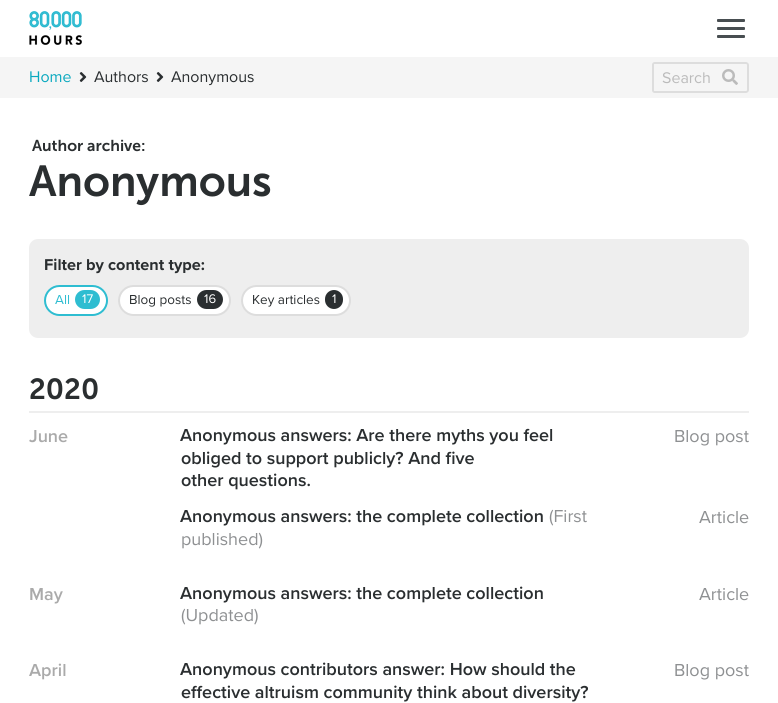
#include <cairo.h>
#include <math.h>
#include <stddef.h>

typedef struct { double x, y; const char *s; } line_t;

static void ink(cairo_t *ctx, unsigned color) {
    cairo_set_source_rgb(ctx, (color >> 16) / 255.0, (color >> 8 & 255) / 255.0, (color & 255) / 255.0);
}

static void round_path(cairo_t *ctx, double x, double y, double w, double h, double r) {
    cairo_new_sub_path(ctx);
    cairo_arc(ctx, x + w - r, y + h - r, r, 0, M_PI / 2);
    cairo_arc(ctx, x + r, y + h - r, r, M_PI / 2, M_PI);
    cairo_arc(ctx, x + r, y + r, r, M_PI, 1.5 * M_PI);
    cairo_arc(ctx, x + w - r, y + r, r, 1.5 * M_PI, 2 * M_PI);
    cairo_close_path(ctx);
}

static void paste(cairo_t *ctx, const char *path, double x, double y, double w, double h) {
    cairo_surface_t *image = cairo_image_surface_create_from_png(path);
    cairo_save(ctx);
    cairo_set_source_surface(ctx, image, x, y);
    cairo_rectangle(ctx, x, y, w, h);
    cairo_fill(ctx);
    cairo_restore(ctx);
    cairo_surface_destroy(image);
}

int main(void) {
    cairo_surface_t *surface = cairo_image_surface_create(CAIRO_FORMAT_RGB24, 778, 703);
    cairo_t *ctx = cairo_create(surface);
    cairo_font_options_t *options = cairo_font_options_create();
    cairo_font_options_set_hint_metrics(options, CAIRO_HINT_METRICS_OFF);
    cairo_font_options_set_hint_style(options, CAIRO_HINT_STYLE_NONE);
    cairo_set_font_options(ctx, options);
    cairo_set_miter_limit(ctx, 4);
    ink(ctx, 0xFFFFFF);
    cairo_paint(ctx);
    paste(ctx, "media/1.png", 29, 11, 53, 34);
    ink(ctx, 0x484E51);
    round_path(ctx, 717, 19, 28, 3, 1);
    cairo_fill(ctx);
    round_path(ctx, 717, 27, 28, 3, 1);
    cairo_fill(ctx);
    round_path(ctx, 717, 35, 28, 3, 1);
    cairo_fill(ctx);
    ink(ctx, 0xF5F5F5);
    cairo_rectangle(ctx, 0, 57, 778, 41);
    cairo_fill(ctx);
    cairo_select_font_face(ctx, "Proxima Nova", CAIRO_FONT_SLANT_NORMAL, CAIRO_FONT_WEIGHT_NORMAL);
    cairo_set_font_size(ctx, 16);
    ink(ctx, 0x0AA9BF);
    cairo_move_to(ctx, 29, 82);
    cairo_show_text(ctx, "Home");
    paste(ctx, "media/2.png", 79, 72, 8, 10);
    ink(ctx, 0x2A2E30);
    cairo_move_to(ctx, 94, 82);
    cairo_show_text(ctx, "Authors");
    paste(ctx, "media/2.png", 156, 72, 8, 10);
    cairo_move_to(ctx, 171, 82);
    cairo_show_text(ctx, "Anonymous");
    ink(ctx, 0xDDDDDD);
    cairo_set_fill_rule(ctx, CAIRO_FILL_RULE_EVEN_ODD);
    cairo_new_path(ctx);
    cairo_move_to(ctx, 655, 62);
    cairo_line_to(ctx, 714, 62);
    cairo_line_to(ctx, 714, 93);
    cairo_line_to(ctx, 655, 93);
    cairo_curve_to(ctx, 653, 93, 652, 92, 652, 90);
    cairo_line_to(ctx, 652, 65);
    cairo_curve_to(ctx, 652, 63, 653, 62, 655, 62);
    cairo_close_path(ctx);
    cairo_move_to(ctx, 655, 64);
    cairo_line_to(ctx, 714, 64);
    cairo_line_to(ctx, 714, 91);
    cairo_line_to(ctx, 655, 91);
    cairo_curve_to(ctx, 654, 91, 654, 91, 654, 90);
    cairo_line_to(ctx, 654, 65);
    cairo_curve_to(ctx, 654, 64, 654, 64, 655, 64);
    cairo_close_path(ctx);
    cairo_fill(ctx);
    ink(ctx, 0xBBBBBB);
    cairo_move_to(ctx, 662, 83);
    cairo_show_text(ctx, "Search");
    ink(ctx, 0xDDDDDD);
    cairo_new_path(ctx);
    cairo_move_to(ctx, 714, 62);
    cairo_line_to(ctx, 746, 62);
    cairo_curve_to(ctx, 747.5, 62, 749, 63.5, 749, 65);
    cairo_line_to(ctx, 749, 90);
    cairo_curve_to(ctx, 749, 91.5, 747.5, 93, 746, 93);
    cairo_line_to(ctx, 714, 93);
    cairo_close_path(ctx);
    cairo_move_to(ctx, 714, 64);
    cairo_line_to(ctx, 746, 64);
    cairo_curve_to(ctx, 746.5, 64, 747, 64.5, 747, 65);
    cairo_line_to(ctx, 747, 90);
    cairo_curve_to(ctx, 747, 90.5, 746.5, 91, 746, 91);
    cairo_line_to(ctx, 714, 91);
    cairo_close_path(ctx);
    cairo_fill(ctx);
    paste(ctx, "media/3.png", 722, 69, 16, 16);
    cairo_select_font_face(ctx, "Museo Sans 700 SemiBold", CAIRO_FONT_SLANT_NORMAL, CAIRO_FONT_WEIGHT_NORMAL);
    cairo_set_font_size(ctx, 15.75);
    ink(ctx, 0x2A2E30);
    cairo_move_to(ctx, 32, 151);
    cairo_show_text(ctx, "Author archive:");
    cairo_set_font_size(ctx, 43.25);
    cairo_move_to(ctx, 29, 196);
    cairo_show_text(ctx, "Anonymous");
    ink(ctx, 0xEEEEEE);
    round_path(ctx, 29, 239, 720, 99, 9);
    cairo_fill(ctx);
    cairo_select_font_face(ctx, "Proxima Nova", CAIRO_FONT_SLANT_NORMAL, CAIRO_FONT_WEIGHT_BOLD);
    cairo_set_font_size(ctx, 16.25);
    ink(ctx, 0x2A2E30);
    cairo_move_to(ctx, 44, 270);
    cairo_show_text(ctx, "Filter by content type:");
    ink(ctx, 0xFFFFFF);
    round_path(ctx, 45, 286, 62, 29, 14.5);
    cairo_fill_preserve(ctx);
    ink(ctx, 0x2EBDD1);
    cairo_stroke(ctx);
    cairo_select_font_face(ctx, "Proxima Nova", CAIRO_FONT_SLANT_NORMAL, CAIRO_FONT_WEIGHT_NORMAL);
    cairo_set_font_size(ctx, 13.5);
    cairo_move_to(ctx, 55, 304);
    cairo_show_text(ctx, "All");
    round_path(ctx, 75, 290, 25, 19, 9.5);
    cairo_fill(ctx);
    cairo_set_font_size(ctx, 13);
    ink(ctx, 0xFFFFFF);
    cairo_move_to(ctx, 82, 303);
    cairo_show_text(ctx, "17");
    round_path(ctx, 119, 286, 111, 29, 14.5);
    cairo_fill_preserve(ctx);
    ink(ctx, 0xDDDDDD);
    cairo_stroke(ctx);
    cairo_set_font_size(ctx, 13.5);
    ink(ctx, 0x2A2E30);
    cairo_move_to(ctx, 129, 304);
    cairo_show_text(ctx, "Blog posts");
    round_path(ctx, 197, 290, 26, 19, 9.5);
    cairo_fill(ctx);
    cairo_set_font_size(ctx, 13);
    ink(ctx, 0xFFFFFF);
    cairo_move_to(ctx, 204, 303);
    cairo_show_text(ctx, "16");
    round_path(ctx, 242, 286, 108, 29, 14.5);
    cairo_fill_preserve(ctx);
    ink(ctx, 0xDDDDDD);
    cairo_stroke(ctx);
    cairo_set_font_size(ctx, 13.5);
    ink(ctx, 0x2A2E30);
    cairo_move_to(ctx, 252, 304);
    cairo_show_text(ctx, "Key articles");
    round_path(ctx, 325, 290, 18, 19, 9);
    cairo_fill(ctx);
    cairo_set_font_size(ctx, 13);
    ink(ctx, 0xFFFFFF);
    cairo_move_to(ctx, 332, 303);
    cairo_show_text(ctx, "1");
    ink(ctx, 0xEEEEEE);
    cairo_rectangle(ctx, 29, 411, 720, 2);
    cairo_fill(ctx);
    cairo_select_font_face(ctx, "Museo Sans 700 SemiBold", CAIRO_FONT_SLANT_NORMAL, CAIRO_FONT_WEIGHT_NORMAL);
    cairo_set_font_size(ctx, 29);
    ink(ctx, 0x2A2E30);
    cairo_move_to(ctx, 29, 399);
    cairo_show_text(ctx, "2020");
    cairo_select_font_face(ctx, "Proxima Nova SemiBold", CAIRO_FONT_SLANT_NORMAL, CAIRO_FONT_WEIGHT_NORMAL);
    cairo_set_font_size(ctx, 18);
    ink(ctx, 0xAAAAAA);
    cairo_move_to(ctx, 29, 442);
    cairo_show_text(ctx, "June");
    ink(ctx, 0x2A2E30);
    {
        static const line_t items[] = {
            {180, 441, "Anonymous answers: Are there myths you feel"},
            {181, 464, "obliged to support publicly? And five"},
            {181, 486, "other questions."},
        };
        for (size_t i = 0; i < sizeof items / sizeof *items; i++) {
            cairo_move_to(ctx, items[i].x, items[i].y);
            cairo_show_text(ctx, items[i].s);
        }
    }
    cairo_select_font_face(ctx, "Proxima Nova", CAIRO_FONT_SLANT_NORMAL, CAIRO_FONT_WEIGHT_NORMAL);
    ink(ctx, 0x8E9092);
    cairo_move_to(ctx, 674, 442);
    cairo_show_text(ctx, "Blog post");
    cairo_select_font_face(ctx, "Proxima Nova SemiBold", CAIRO_FONT_SLANT_NORMAL, CAIRO_FONT_WEIGHT_NORMAL);
    ink(ctx, 0x2A2E30);
    cairo_move_to(ctx, 180, 522);
    cairo_show_text(ctx, "Anonymous answers: the complete collection");
    cairo_select_font_face(ctx, "Proxima Nova", CAIRO_FONT_SLANT_NORMAL, CAIRO_FONT_WEIGHT_NORMAL);
    ink(ctx, 0x8E9092);
    {
        static const line_t items[] = {
            {549, 522, "(First"},
            {181, 545, "published)"},
            {699, 523, "Article"},
        };
        for (size_t i = 0; i < sizeof items / sizeof *items; i++) {
            cairo_move_to(ctx, items[i].x, items[i].y);
            cairo_show_text(ctx, items[i].s);
        }
    }
    cairo_select_font_face(ctx, "Proxima Nova SemiBold", CAIRO_FONT_SLANT_NORMAL, CAIRO_FONT_WEIGHT_NORMAL);
    ink(ctx, 0xAAAAAA);
    cairo_move_to(ctx, 29, 600);
    cairo_show_text(ctx, "May");
    ink(ctx, 0x2A2E30);
    cairo_move_to(ctx, 180, 599);
    cairo_show_text(ctx, "Anonymous answers: the complete collection");
    cairo_select_font_face(ctx, "Proxima Nova", CAIRO_FONT_SLANT_NORMAL, CAIRO_FONT_WEIGHT_NORMAL);
    ink(ctx, 0x8E9092);
    cairo_move_to(ctx, 181, 621);
    cairo_show_text(ctx, "(Updated)");
    cairo_move_to(ctx, 699, 600);
    cairo_show_text(ctx, "Article");
    cairo_select_font_face(ctx, "Proxima Nova SemiBold", CAIRO_FONT_SLANT_NORMAL, CAIRO_FONT_WEIGHT_NORMAL);
    ink(ctx, 0xAAAAAA);
    cairo_move_to(ctx, 29, 676);
    cairo_show_text(ctx, "April");
    ink(ctx, 0x2A2E30);
    cairo_move_to(ctx, 180, 675);
    cairo_show_text(ctx, "Anonymous contributors answer: How should the");
    cairo_move_to(ctx, 181, 698);
    cairo_show_text(ctx, "effective altruism community think about diversity?");
    cairo_select_font_face(ctx, "Proxima Nova", CAIRO_FONT_SLANT_NORMAL, CAIRO_FONT_WEIGHT_NORMAL);
    ink(ctx, 0x8E9092);
    cairo_move_to(ctx, 674, 676);
    cairo_show_text(ctx, "Blog post");
    cairo_surface_write_to_png(surface, "image.png");
    cairo_font_options_destroy(options);
    cairo_destroy(ctx);
    cairo_surface_destroy(surface);
    return 0;
}
